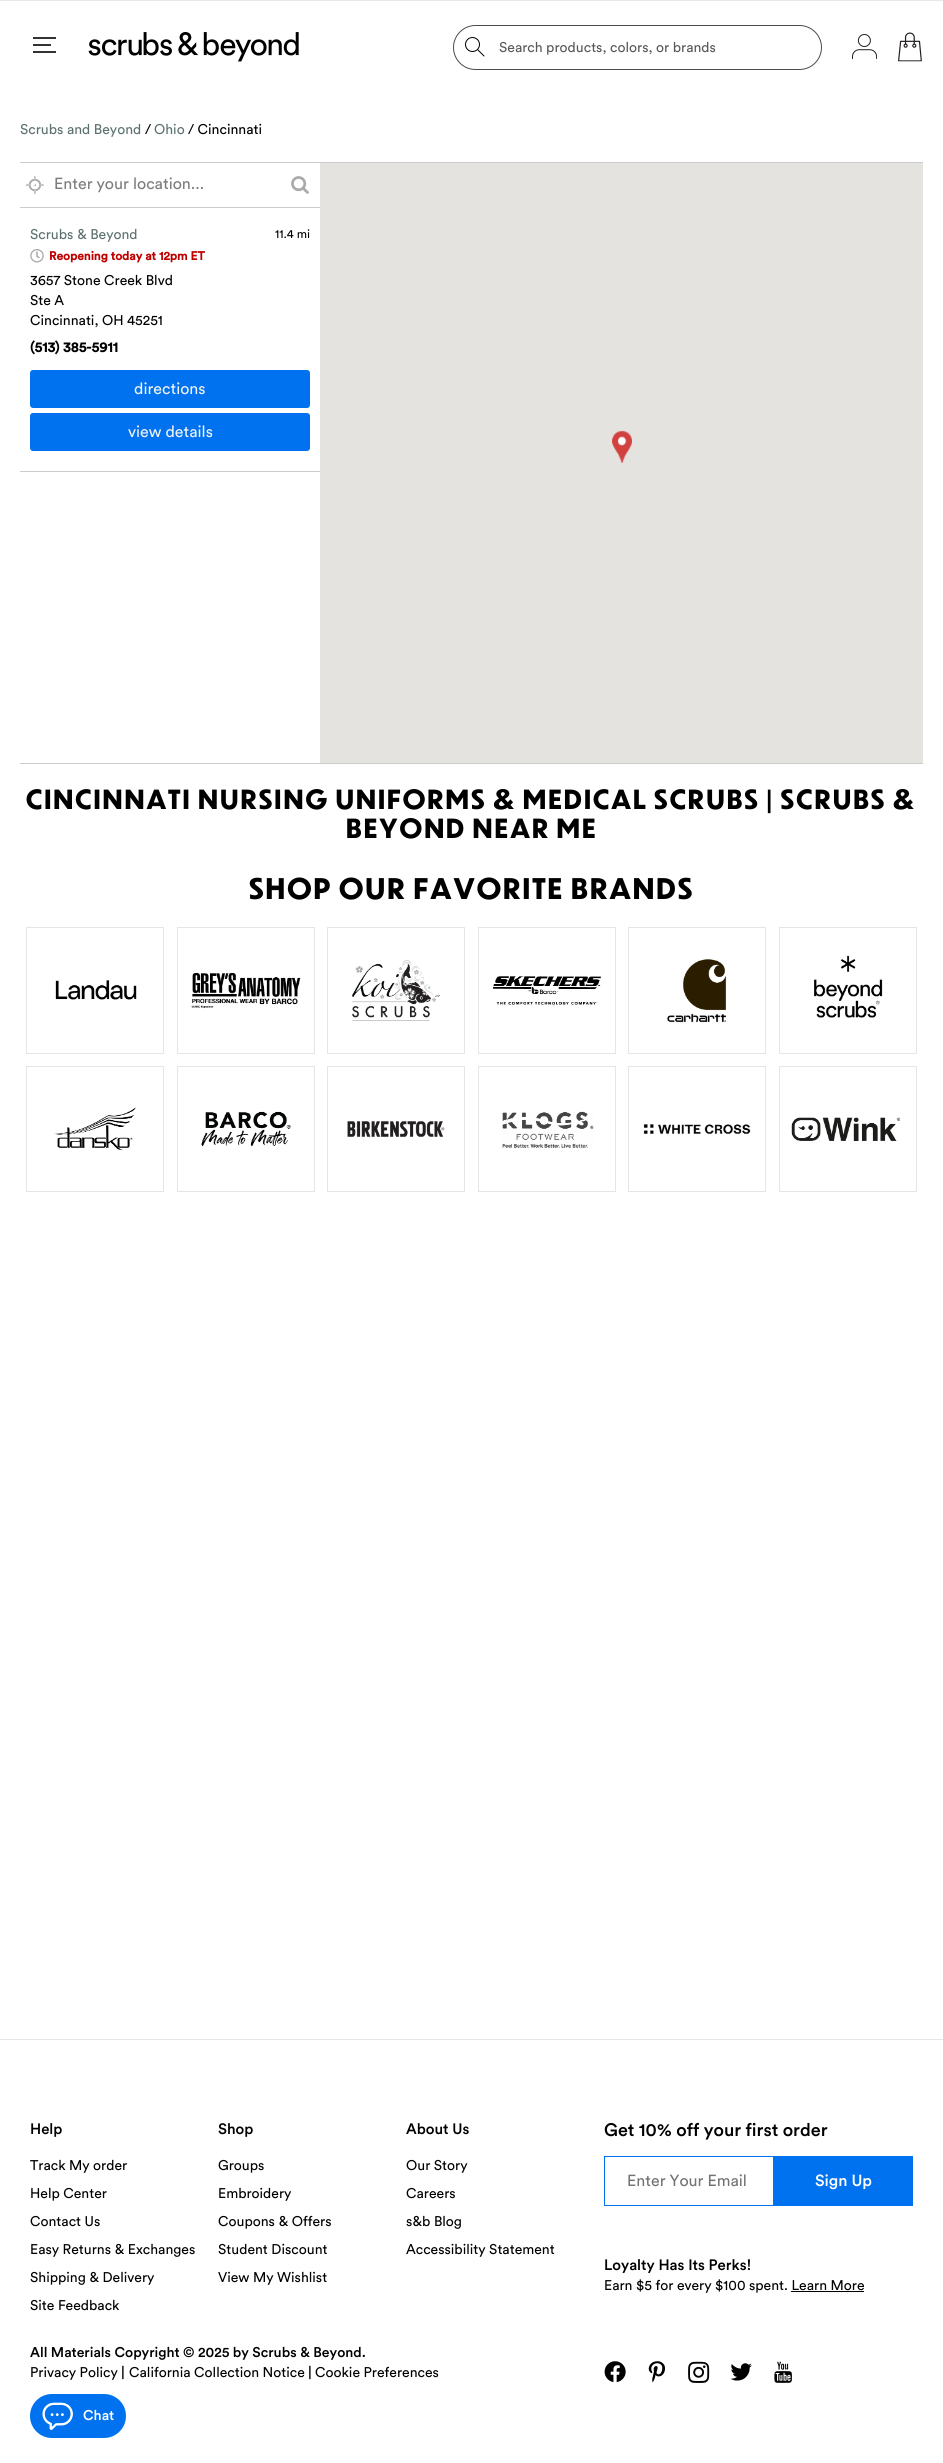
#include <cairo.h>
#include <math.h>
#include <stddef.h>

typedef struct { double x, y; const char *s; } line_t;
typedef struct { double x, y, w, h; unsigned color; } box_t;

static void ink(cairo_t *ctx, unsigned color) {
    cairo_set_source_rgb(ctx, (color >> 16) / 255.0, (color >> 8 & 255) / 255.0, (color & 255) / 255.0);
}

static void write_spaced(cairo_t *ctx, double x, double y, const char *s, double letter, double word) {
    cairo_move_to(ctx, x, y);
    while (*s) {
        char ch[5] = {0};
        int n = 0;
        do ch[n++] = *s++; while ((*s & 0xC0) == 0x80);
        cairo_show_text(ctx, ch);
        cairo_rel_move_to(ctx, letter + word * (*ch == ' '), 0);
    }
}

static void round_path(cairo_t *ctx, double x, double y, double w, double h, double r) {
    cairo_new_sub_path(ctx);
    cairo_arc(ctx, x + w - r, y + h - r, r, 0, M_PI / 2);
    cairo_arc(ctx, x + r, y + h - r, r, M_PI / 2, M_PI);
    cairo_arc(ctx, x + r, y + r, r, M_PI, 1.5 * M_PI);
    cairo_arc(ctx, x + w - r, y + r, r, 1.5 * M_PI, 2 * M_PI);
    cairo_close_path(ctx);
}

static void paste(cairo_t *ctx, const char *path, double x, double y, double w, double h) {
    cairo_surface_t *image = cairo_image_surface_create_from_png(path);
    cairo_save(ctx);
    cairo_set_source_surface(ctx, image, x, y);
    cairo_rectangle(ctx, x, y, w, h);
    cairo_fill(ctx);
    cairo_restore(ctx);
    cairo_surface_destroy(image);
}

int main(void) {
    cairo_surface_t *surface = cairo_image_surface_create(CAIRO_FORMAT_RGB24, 943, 2463);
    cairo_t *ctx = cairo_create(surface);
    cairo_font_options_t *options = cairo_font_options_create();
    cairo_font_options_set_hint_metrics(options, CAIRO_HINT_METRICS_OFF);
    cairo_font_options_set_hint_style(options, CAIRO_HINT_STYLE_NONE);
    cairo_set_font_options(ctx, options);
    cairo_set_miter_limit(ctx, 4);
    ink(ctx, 0xFFFFFF);
    cairo_paint(ctx);
    {
        static const box_t items[] = {
            {0, 0, 943, 1, 0xE8E8E8},
            {33, 37, 23, 2, 0x333333},
            {33, 44, 18, 2, 0x333333},
            {33, 51, 23, 2, 0x333333},
        };
        for (size_t i = 0; i < sizeof items / sizeof *items; i++) {
            ink(ctx, items[i].color);
            cairo_rectangle(ctx, items[i].x, items[i].y, items[i].w, items[i].h);
            cairo_fill(ctx);
        }
    }
    paste(ctx, "media/1.png", 88, 32, 211, 30);
    round_path(ctx, 453.5, 25.5, 368, 44, 22);
    ink(ctx, 0x4C4C4C);
    cairo_set_line_width(ctx, 1);
    cairo_stroke(ctx);
    cairo_arc(ctx, 472.5, 44.5, 7, 0, 2 * M_PI);
    ink(ctx, 0x000000);
    cairo_stroke(ctx);
    cairo_new_path(ctx);
    cairo_move_to(ctx, 478, 50);
    cairo_line_to(ctx, 484, 56);
    cairo_set_line_cap(ctx, CAIRO_LINE_CAP_ROUND);
    cairo_stroke(ctx);
    cairo_select_font_face(ctx, "Circular", CAIRO_FONT_SLANT_NORMAL, CAIRO_FONT_WEIGHT_NORMAL);
    cairo_set_font_size(ctx, 14);
    ink(ctx, 0x595959);
    cairo_move_to(ctx, 499, 52);
    cairo_show_text(ctx, "Search products, colors, or brands");
    paste(ctx, "media/2.png", 852, 34, 25, 25);
    paste(ctx, "media/3.png", 898, 32, 24, 30);
    ink(ctx, 0x5C7070);
    cairo_move_to(ctx, 20, 134);
    cairo_show_text(ctx, "Scrubs and Beyond");
    ink(ctx, 0x000000);
    cairo_move_to(ctx, 145, 134);
    cairo_show_text(ctx, "/");
    ink(ctx, 0x5C7070);
    cairo_move_to(ctx, 154, 134);
    cairo_show_text(ctx, "Ohio");
    ink(ctx, 0x000000);
    cairo_move_to(ctx, 188, 134);
    cairo_show_text(ctx, "/ Cincinnati");
    {
        static const box_t items[] = {
            {20, 162, 903, 1, 0xCCCCCC},
            {20, 763, 903, 1, 0xCCCCCC},
            {20, 207, 300, 1, 0xCCCCCC},
        };
        for (size_t i = 0; i < sizeof items / sizeof *items; i++) {
            ink(ctx, items[i].color);
            cairo_rectangle(ctx, items[i].x, items[i].y, items[i].w, items[i].h);
            cairo_fill(ctx);
        }
    }
    paste(ctx, "media/4.png", 26, 176, 18, 18);
    cairo_set_font_size(ctx, 16);
    ink(ctx, 0x7D7D7D);
    cairo_move_to(ctx, 54, 189);
    cairo_show_text(ctx, "Enter your location...");
    paste(ctx, "media/5.png", 291, 176, 18, 18);
    ink(ctx, 0xCCCCCC);
    cairo_rectangle(ctx, 20, 471, 300, 1);
    cairo_fill(ctx);
    cairo_set_font_size(ctx, 14);
    ink(ctx, 0x5C7070);
    cairo_move_to(ctx, 30, 239);
    cairo_show_text(ctx, "Scrubs & Beyond");
    cairo_set_font_size(ctx, 12);
    ink(ctx, 0x000000);
    cairo_move_to(ctx, 275, 238);
    cairo_show_text(ctx, "11.4 mi");
    paste(ctx, "media/6.png", 30, 249, 14, 14);
    cairo_select_font_face(ctx, "Circular", CAIRO_FONT_SLANT_NORMAL, CAIRO_FONT_WEIGHT_BOLD);
    ink(ctx, 0xBF0000);
    cairo_move_to(ctx, 49, 260);
    cairo_show_text(ctx, "Reopening today at 12pm ET");
    cairo_select_font_face(ctx, "Circular", CAIRO_FONT_SLANT_NORMAL, CAIRO_FONT_WEIGHT_NORMAL);
    cairo_set_font_size(ctx, 14);
    ink(ctx, 0x000000);
    {
        static const line_t items[] = {
            {30, 285, "3657 Stone Creek Blvd"},
            {30, 305, "Ste A"},
            {30, 325, "Cincinnati, OH 45251"},
        };
        for (size_t i = 0; i < sizeof items / sizeof *items; i++) {
            cairo_move_to(ctx, items[i].x, items[i].y);
            cairo_show_text(ctx, items[i].s);
        }
    }
    cairo_select_font_face(ctx, "Circular", CAIRO_FONT_SLANT_NORMAL, CAIRO_FONT_WEIGHT_BOLD);
    cairo_move_to(ctx, 30, 352);
    cairo_show_text(ctx, "(513) 385-5911");
    ink(ctx, 0x0072EF);
    round_path(ctx, 30, 370, 280, 38, 3);
    cairo_fill(ctx);
    cairo_select_font_face(ctx, "Circular", CAIRO_FONT_SLANT_NORMAL, CAIRO_FONT_WEIGHT_NORMAL);
    cairo_set_font_size(ctx, 16);
    ink(ctx, 0xF1F2F2);
    cairo_move_to(ctx, 134, 394);
    cairo_show_text(ctx, "directions");
    ink(ctx, 0x0072EF);
    round_path(ctx, 30, 413, 280, 38, 3);
    cairo_fill(ctx);
    ink(ctx, 0xF1F2F2);
    cairo_move_to(ctx, 128, 437);
    cairo_show_text(ctx, "view details");
    ink(ctx, 0xE5E3DF);
    cairo_rectangle(ctx, 320, 163, 603, 600);
    cairo_fill(ctx);
    paste(ctx, "media/7.png", 612, 430, 20, 33);
    cairo_select_font_face(ctx, "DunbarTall", CAIRO_FONT_SLANT_NORMAL, CAIRO_FONT_WEIGHT_BOLD);
    cairo_set_font_size(ctx, 26);
    ink(ctx, 0x000000);
    write_spaced(ctx, 26, 809, "CINCINNATI NURSING UNIFORMS & MEDICAL SCRUBS | SCRUBS &", 2, 0);
    write_spaced(ctx, 346, 838, "BEYOND NEAR ME", 2, 0);
    cairo_set_font_size(ctx, 28);
    write_spaced(ctx, 249, 899, "SHOP OUR FAVORITE BRANDS", 2, 0);
    cairo_rectangle(ctx, 26.5, 927.5, 137, 126);
    ink(ctx, 0xE5E5E5);
    cairo_set_line_cap(ctx, CAIRO_LINE_CAP_BUTT);
    cairo_stroke(ctx);
    paste(ctx, "media/8.png", 55, 980, 82, 20);
    cairo_rectangle(ctx, 177.5, 927.5, 137, 126);
    cairo_stroke(ctx);
    paste(ctx, "media/9.png", 191, 972, 110, 37);
    cairo_rectangle(ctx, 327.5, 927.5, 137, 126);
    cairo_stroke(ctx);
    paste(ctx, "media/10.png", 352, 960, 88, 61);
    cairo_rectangle(ctx, 478.5, 927.5, 137, 126);
    cairo_stroke(ctx);
    paste(ctx, "media/11.png", 492, 976, 109, 29);
    cairo_rectangle(ctx, 628.5, 927.5, 137, 126);
    cairo_stroke(ctx);
    paste(ctx, "media/12.png", 667, 959, 60, 64);
    cairo_rectangle(ctx, 779.5, 927.5, 137, 126);
    cairo_stroke(ctx);
    paste(ctx, "media/13.png", 814, 955, 69, 63);
    cairo_rectangle(ctx, 26.5, 1066.5, 137, 125);
    cairo_stroke(ctx);
    paste(ctx, "media/14.png", 54, 1107, 82, 44);
    cairo_rectangle(ctx, 177.5, 1066.5, 137, 125);
    cairo_stroke(ctx);
    paste(ctx, "media/15.png", 201, 1111, 90, 36);
    cairo_rectangle(ctx, 327.5, 1066.5, 137, 125);
    cairo_stroke(ctx);
    paste(ctx, "media/16.png", 347, 1121, 98, 16);
    cairo_rectangle(ctx, 478.5, 1066.5, 137, 125);
    cairo_stroke(ctx);
    paste(ctx, "media/17.png", 502, 1111, 92, 37);
    cairo_rectangle(ctx, 628.5, 1066.5, 137, 125);
    cairo_stroke(ctx);
    paste(ctx, "media/18.png", 643, 1124, 108, 11);
    cairo_rectangle(ctx, 779.5, 1066.5, 137, 125);
    cairo_stroke(ctx);
    paste(ctx, "media/19.png", 791, 1117, 109, 24);
    cairo_rectangle(ctx, 0, 2039, 943, 1);
    cairo_fill(ctx);
    cairo_select_font_face(ctx, "Circular Medium", CAIRO_FONT_SLANT_NORMAL, CAIRO_FONT_WEIGHT_NORMAL);
    cairo_set_font_size(ctx, 15);
    ink(ctx, 0x000000);
    cairo_move_to(ctx, 30, 2134);
    cairo_show_text(ctx, "Help");
    cairo_select_font_face(ctx, "Circular", CAIRO_FONT_SLANT_NORMAL, CAIRO_FONT_WEIGHT_NORMAL);
    cairo_set_font_size(ctx, 14);
    {
        static const line_t items[] = {
            {30, 2170, "Track My order"},
            {30, 2198, "Help Center"},
            {30, 2226, "Contact Us"},
            {30, 2254, "Easy Returns & Exchanges"},
            {30, 2282, "Shipping & Delivery"},
            {30, 2310, "Site Feedback"},
        };
        for (size_t i = 0; i < sizeof items / sizeof *items; i++) {
            cairo_move_to(ctx, items[i].x, items[i].y);
            cairo_show_text(ctx, items[i].s);
        }
    }
    cairo_select_font_face(ctx, "Circular Medium", CAIRO_FONT_SLANT_NORMAL, CAIRO_FONT_WEIGHT_NORMAL);
    cairo_set_font_size(ctx, 15);
    cairo_move_to(ctx, 218, 2134);
    cairo_show_text(ctx, "Shop");
    cairo_select_font_face(ctx, "Circular", CAIRO_FONT_SLANT_NORMAL, CAIRO_FONT_WEIGHT_NORMAL);
    cairo_set_font_size(ctx, 14);
    {
        static const line_t items[] = {
            {218, 2170, "Groups"},
            {218, 2198, "Embroidery"},
            {218, 2226, "Coupons & Offers"},
            {218, 2254, "Student Discount"},
            {218, 2282, "View My Wishlist"},
        };
        for (size_t i = 0; i < sizeof items / sizeof *items; i++) {
            cairo_move_to(ctx, items[i].x, items[i].y);
            cairo_show_text(ctx, items[i].s);
        }
    }
    cairo_select_font_face(ctx, "Circular Medium", CAIRO_FONT_SLANT_NORMAL, CAIRO_FONT_WEIGHT_NORMAL);
    cairo_set_font_size(ctx, 15);
    cairo_move_to(ctx, 406, 2134);
    cairo_show_text(ctx, "About Us");
    cairo_select_font_face(ctx, "Circular", CAIRO_FONT_SLANT_NORMAL, CAIRO_FONT_WEIGHT_NORMAL);
    cairo_set_font_size(ctx, 14);
    {
        static const line_t items[] = {
            {406, 2170, "Our Story"},
            {406, 2198, "Careers"},
            {406, 2226, "s&b Blog"},
            {406, 2254, "Accessibility Statement"},
        };
        for (size_t i = 0; i < sizeof items / sizeof *items; i++) {
            cairo_move_to(ctx, items[i].x, items[i].y);
            cairo_show_text(ctx, items[i].s);
        }
    }
    cairo_select_font_face(ctx, "Circular Medium", CAIRO_FONT_SLANT_NORMAL, CAIRO_FONT_WEIGHT_NORMAL);
    cairo_set_font_size(ctx, 18);
    cairo_move_to(ctx, 604, 2136);
    cairo_show_text(ctx, "Get 10% off your first order");
    {
        static const box_t items[] = {
            {604, 2156, 169, 1, 0x0072EF},
            {604, 2205, 169, 1, 0x0072EF},
            {604, 2156, 1, 50, 0x0072EF},
        };
        for (size_t i = 0; i < sizeof items / sizeof *items; i++) {
            ink(ctx, items[i].color);
            cairo_rectangle(ctx, items[i].x, items[i].y, items[i].w, items[i].h);
            cairo_fill(ctx);
        }
    }
    cairo_select_font_face(ctx, "Circular", CAIRO_FONT_SLANT_NORMAL, CAIRO_FONT_WEIGHT_NORMAL);
    cairo_set_font_size(ctx, 16);
    ink(ctx, 0x737373);
    cairo_move_to(ctx, 627, 2186);
    cairo_show_text(ctx, "Enter Your Email");
    ink(ctx, 0x0072EF);
    cairo_rectangle(ctx, 773, 2156, 140, 50);
    cairo_fill(ctx);
    cairo_select_font_face(ctx, "Circular Medium", CAIRO_FONT_SLANT_NORMAL, CAIRO_FONT_WEIGHT_NORMAL);
    ink(ctx, 0xFFFFFF);
    cairo_move_to(ctx, 815, 2186);
    cairo_show_text(ctx, "Sign Up");
    cairo_set_font_size(ctx, 15);
    ink(ctx, 0x000000);
    cairo_move_to(ctx, 604, 2270);
    cairo_show_text(ctx, "Loyalty Has Its Perks!");
    cairo_select_font_face(ctx, "Circular", CAIRO_FONT_SLANT_NORMAL, CAIRO_FONT_WEIGHT_NORMAL);
    cairo_set_font_size(ctx, 14);
    cairo_move_to(ctx, 604, 2290);
    cairo_show_text(ctx, "Earn $5 for every $100 spent. Learn More");
    cairo_rectangle(ctx, 791, 2291, 73, 1);
    cairo_fill(ctx);
    cairo_select_font_face(ctx, "Circular Medium", CAIRO_FONT_SLANT_NORMAL, CAIRO_FONT_WEIGHT_NORMAL);
    cairo_move_to(ctx, 30, 2357);
    cairo_show_text(ctx, "All Materials Copyright © 2025 by Scrubs & Beyond.");
    cairo_select_font_face(ctx, "Circular", CAIRO_FONT_SLANT_NORMAL, CAIRO_FONT_WEIGHT_NORMAL);
    cairo_move_to(ctx, 30, 2377);
    cairo_show_text(ctx, "Privacy Policy");
    cairo_select_font_face(ctx, "Circular Medium", CAIRO_FONT_SLANT_NORMAL, CAIRO_FONT_WEIGHT_NORMAL);
    cairo_move_to(ctx, 121, 2377);
    cairo_show_text(ctx, "|");
    cairo_select_font_face(ctx, "Circular", CAIRO_FONT_SLANT_NORMAL, CAIRO_FONT_WEIGHT_NORMAL);
    cairo_move_to(ctx, 129, 2377);
    cairo_show_text(ctx, "California Collection Notice");
    cairo_select_font_face(ctx, "Circular Medium", CAIRO_FONT_SLANT_NORMAL, CAIRO_FONT_WEIGHT_NORMAL);
    cairo_move_to(ctx, 308, 2377);
    cairo_show_text(ctx, "|");
    cairo_select_font_face(ctx, "Circular", CAIRO_FONT_SLANT_NORMAL, CAIRO_FONT_WEIGHT_NORMAL);
    cairo_move_to(ctx, 315, 2377);
    cairo_show_text(ctx, "Cookie Preferences");
    paste(ctx, "media/20.png", 604, 2361, 22, 22);
    paste(ctx, "media/21.png", 648, 2361, 17, 22);
    paste(ctx, "media/22.png", 688, 2361, 22, 22);
    paste(ctx, "media/23.png", 730, 2363, 22, 18);
    paste(ctx, "media/24.png", 774, 2361, 18, 22);
    ink(ctx, 0x0072EF);
    round_path(ctx, 30, 2394, 96, 44, 22);
    cairo_fill(ctx);
    paste(ctx, "media/25.png", 42, 2402, 31, 28);
    cairo_select_font_face(ctx, "Circular Medium", CAIRO_FONT_SLANT_NORMAL, CAIRO_FONT_WEIGHT_NORMAL);
    ink(ctx, 0xFFFFFF);
    cairo_move_to(ctx, 83, 2420);
    cairo_show_text(ctx, "Chat");
    cairo_surface_write_to_png(surface, "image.png");
    cairo_font_options_destroy(options);
    cairo_destroy(ctx);
    cairo_surface_destroy(surface);
    return 0;
}
